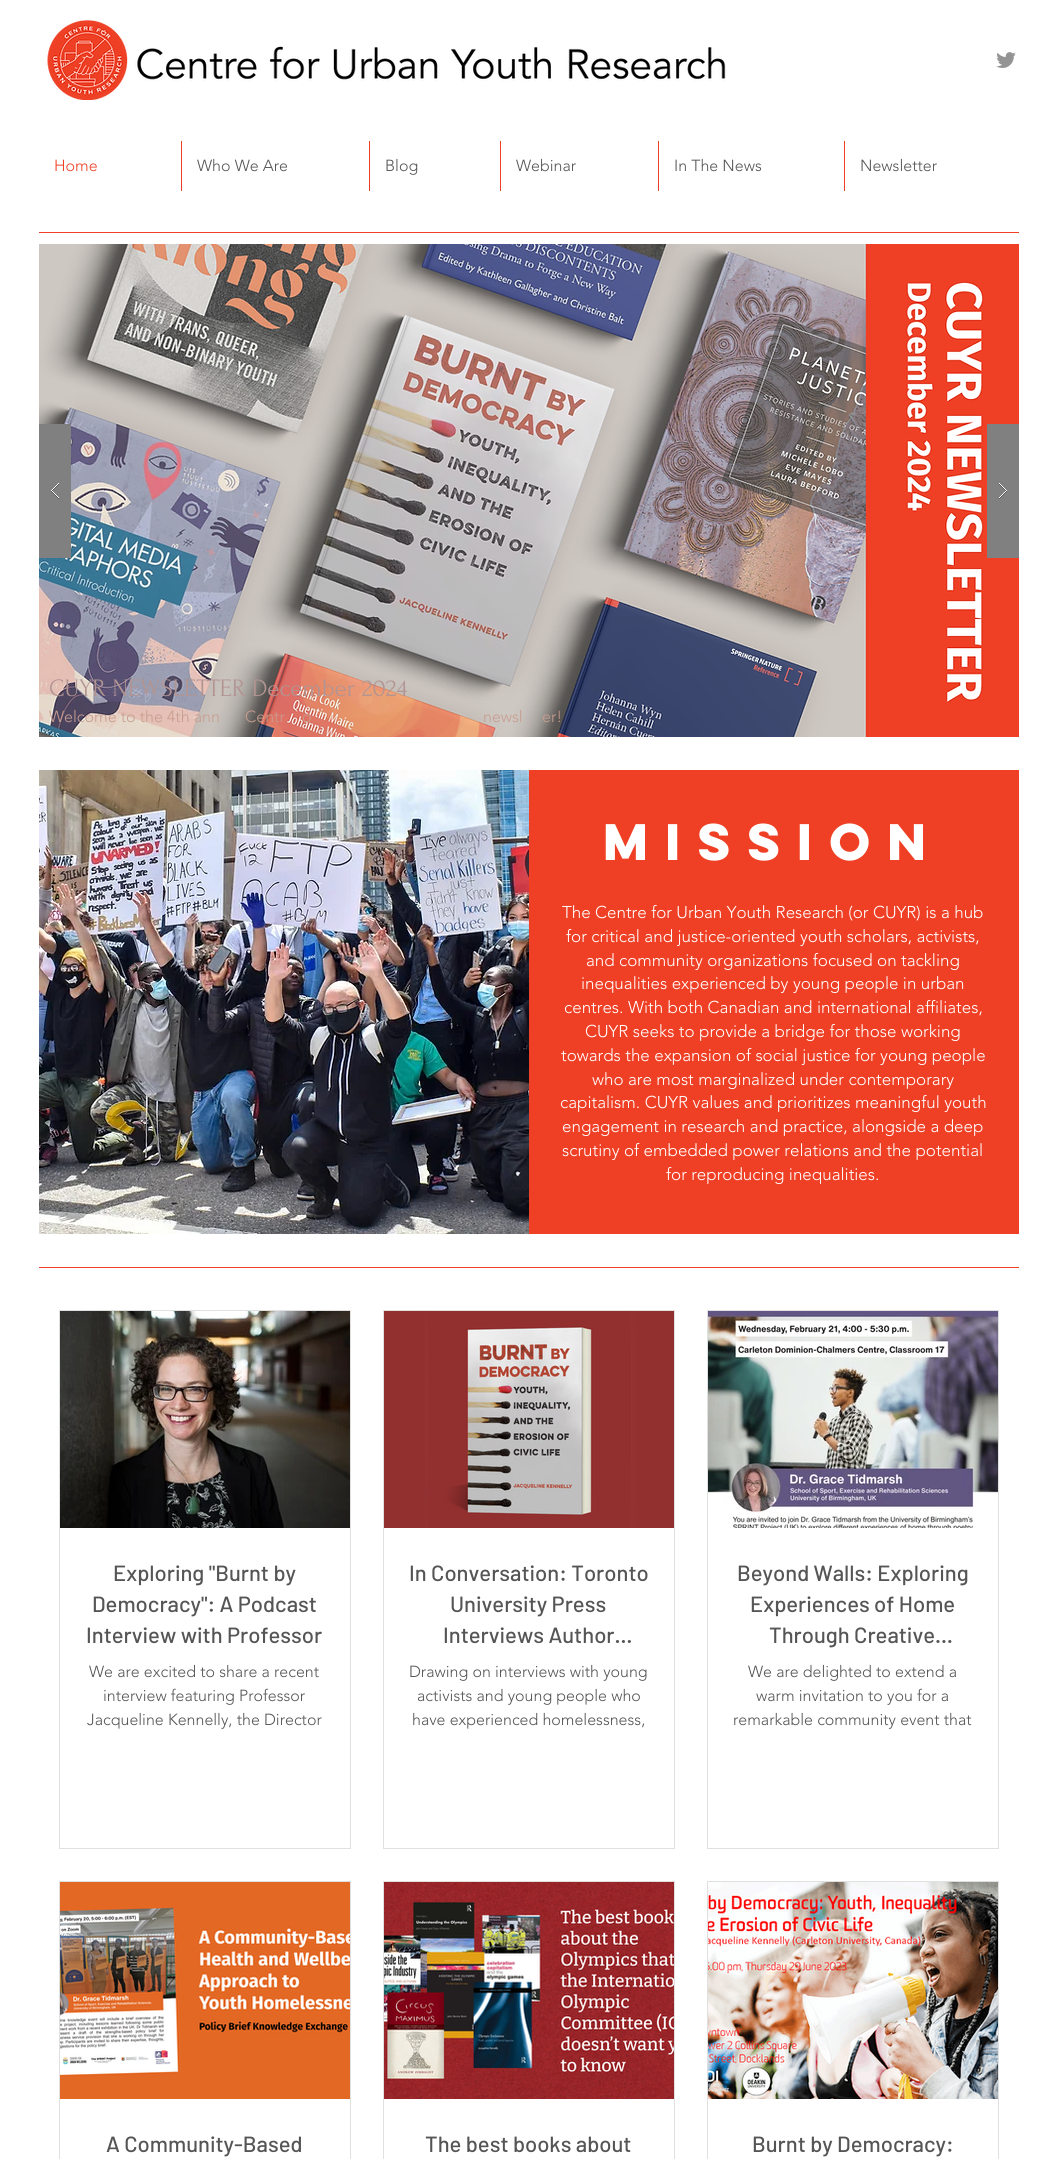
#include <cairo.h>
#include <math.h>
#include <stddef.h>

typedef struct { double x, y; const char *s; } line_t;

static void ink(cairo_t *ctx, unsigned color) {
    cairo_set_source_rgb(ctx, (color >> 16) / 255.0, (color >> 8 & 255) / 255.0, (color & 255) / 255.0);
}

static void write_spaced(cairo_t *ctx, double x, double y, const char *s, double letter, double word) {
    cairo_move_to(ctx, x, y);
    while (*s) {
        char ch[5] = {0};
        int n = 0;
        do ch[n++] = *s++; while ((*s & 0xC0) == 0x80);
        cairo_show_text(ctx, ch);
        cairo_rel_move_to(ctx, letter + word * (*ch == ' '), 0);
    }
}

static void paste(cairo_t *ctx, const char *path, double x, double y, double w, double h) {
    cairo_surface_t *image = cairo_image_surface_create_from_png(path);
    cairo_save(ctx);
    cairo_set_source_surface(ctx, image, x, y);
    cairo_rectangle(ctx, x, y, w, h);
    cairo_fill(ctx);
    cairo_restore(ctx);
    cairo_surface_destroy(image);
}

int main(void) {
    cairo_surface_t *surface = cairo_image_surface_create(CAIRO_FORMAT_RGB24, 1057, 2159);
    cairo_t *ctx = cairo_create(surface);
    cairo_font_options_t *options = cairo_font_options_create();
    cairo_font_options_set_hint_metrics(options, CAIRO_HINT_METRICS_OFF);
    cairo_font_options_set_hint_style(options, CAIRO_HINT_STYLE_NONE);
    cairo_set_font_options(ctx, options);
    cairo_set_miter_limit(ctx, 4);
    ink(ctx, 0xFFFFFF);
    cairo_paint(ctx);
    paste(ctx, "media/1.png", 45, 20, 681, 80);
    paste(ctx, "media/2.png", 996, 52, 20, 17);
    cairo_select_font_face(ctx, "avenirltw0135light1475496 Light", CAIRO_FONT_SLANT_NORMAL, CAIRO_FONT_WEIGHT_NORMAL);
    cairo_set_font_size(ctx, 16);
    ink(ctx, 0xEF4025);
    cairo_move_to(ctx, 54, 171);
    cairo_show_text(ctx, "Home");
    cairo_rectangle(ctx, 181, 141, 1, 50);
    cairo_fill(ctx);
    ink(ctx, 0x555555);
    cairo_move_to(ctx, 197, 171);
    cairo_show_text(ctx, "Who We Are");
    ink(ctx, 0xEF4025);
    cairo_rectangle(ctx, 369, 141, 1, 50);
    cairo_fill(ctx);
    ink(ctx, 0x555555);
    cairo_move_to(ctx, 385, 171);
    cairo_show_text(ctx, "Blog");
    ink(ctx, 0xEF4025);
    cairo_rectangle(ctx, 500, 141, 1, 50);
    cairo_fill(ctx);
    ink(ctx, 0x555555);
    cairo_move_to(ctx, 516, 171);
    cairo_show_text(ctx, "Webinar");
    ink(ctx, 0xEF4025);
    cairo_rectangle(ctx, 658, 141, 1, 50);
    cairo_fill(ctx);
    ink(ctx, 0x555555);
    cairo_move_to(ctx, 674, 171);
    cairo_show_text(ctx, "In The News");
    ink(ctx, 0xEF4025);
    cairo_rectangle(ctx, 844, 141, 1, 50);
    cairo_fill(ctx);
    ink(ctx, 0x555555);
    cairo_move_to(ctx, 860, 171);
    cairo_show_text(ctx, "Newsletter");
    ink(ctx, 0xEF4025);
    cairo_rectangle(ctx, 39, 232, 980, 1);
    cairo_fill(ctx);
    paste(ctx, "media/5.png", 39, 244, 980, 493);
    ink(ctx, 0x808080);
    cairo_rectangle(ctx, 39, 424, 32, 134);
    cairo_fill(ctx);
    paste(ctx, "media/3.png", 51, 483, 8, 16);
    cairo_rectangle(ctx, 987, 424, 32, 134);
    cairo_fill(ctx);
    paste(ctx, "media/4.png", 999, 483, 8, 16);
    cairo_select_font_face(ctx, "Forum", CAIRO_FONT_SLANT_NORMAL, CAIRO_FONT_WEIGHT_NORMAL);
    cairo_set_font_size(ctx, 25);
    ink(ctx, 0xB29492);
    cairo_move_to(ctx, 49, 696);
    cairo_show_text(ctx, "CUYR NEWSLETTER December 2024");
    cairo_select_font_face(ctx, "avenirltw0135light1475496 Light", CAIRO_FONT_SLANT_NORMAL, CAIRO_FONT_WEIGHT_NORMAL);
    cairo_set_font_size(ctx, 16);
    ink(ctx, 0xC89D8F);
    {
        static const line_t items[] = {
            {49, 722, "Welcome to the 4th ann"},
            {245, 722, "Centr"},
            {302, 722, "o"},
            {483, 722, "newsl"},
            {542, 722, "er!"},
        };
        for (size_t i = 0; i < sizeof items / sizeof *items; i++) {
            cairo_move_to(ctx, items[i].x, items[i].y);
            cairo_show_text(ctx, items[i].s);
        }
    }
    paste(ctx, "media/6.png", 39, 770, 490, 464);
    ink(ctx, 0xEF4025);
    cairo_rectangle(ctx, 529, 770, 490, 464);
    cairo_fill(ctx);
    cairo_select_font_face(ctx, "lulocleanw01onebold", CAIRO_FONT_SLANT_NORMAL, CAIRO_FONT_WEIGHT_BOLD);
    cairo_set_font_size(ctx, 46);
    ink(ctx, 0xFFFFFF);
    write_spaced(ctx, 603, 860, "MISSION", 7, 0);
    cairo_select_font_face(ctx, "avenirltw0135light1475496 Light", CAIRO_FONT_SLANT_NORMAL, CAIRO_FONT_WEIGHT_NORMAL);
    cairo_set_font_size(ctx, 17);
    {
        static const line_t items[] = {
            {562, 918, "The Centre for Urban Youth Research (or CUYR) is a hub"},
            {566, 942, "for critical and justice-oriented youth scholars, activists,"},
            {586, 966, "and community organizations focused on tackling"},
            {581, 989, "inequalities experienced by young people in urban"},
            {564, 1013, "centres. With both Canadian and international affiliates,"},
            {585, 1037, "CUYR seeks to provide a bridge for those working"},
            {561, 1061, "towards the expansion of social justice for young people"},
            {592, 1085, "who are most marginalized under contemporary"},
            {560, 1108, "capitalism. CUYR values and prioritizes meaningful youth"},
            {562, 1132, "engagement in research and practice, alongside a deep"},
            {562, 1156, "scrutiny of embedded power relations and the potential"},
            {666, 1180, "for reproducing inequalities."},
        };
        for (size_t i = 0; i < sizeof items / sizeof *items; i++) {
            cairo_move_to(ctx, items[i].x, items[i].y);
            cairo_show_text(ctx, items[i].s);
        }
    }
    ink(ctx, 0xEF4025);
    cairo_rectangle(ctx, 39, 1267, 980, 1);
    cairo_fill(ctx);
    cairo_rectangle(ctx, 59.5, 1310.5, 291, 538);
    ink(ctx, 0xE0E0E0);
    cairo_set_line_width(ctx, 1);
    cairo_stroke(ctx);
    paste(ctx, "media/7.png", 60, 1311, 290, 217);
    cairo_select_font_face(ctx, "Barlow Medium", CAIRO_FONT_SLANT_NORMAL, CAIRO_FONT_WEIGHT_NORMAL);
    cairo_set_font_size(ctx, 22);
    ink(ctx, 0x555555);
    {
        static const line_t items[] = {
            {113, 1581, "Exploring \"Burnt by"},
            {92, 1612, "Democracy\": A Podcast"},
            {86, 1643, "Interview with Professor"},
        };
        for (size_t i = 0; i < sizeof items / sizeof *items; i++) {
            cairo_move_to(ctx, items[i].x, items[i].y);
            cairo_show_text(ctx, items[i].s);
        }
    }
    cairo_select_font_face(ctx, "avenirltw0135light1475496 Light", CAIRO_FONT_SLANT_NORMAL, CAIRO_FONT_WEIGHT_NORMAL);
    cairo_set_font_size(ctx, 16);
    {
        static const line_t items[] = {
            {89, 1677, "We are excited to share a recent"},
            {103, 1701, "interview featuring Professor"},
            {87, 1725, "Jacqueline Kennelly, the Director"},
        };
        for (size_t i = 0; i < sizeof items / sizeof *items; i++) {
            cairo_move_to(ctx, items[i].x, items[i].y);
            cairo_show_text(ctx, items[i].s);
        }
    }
    cairo_rectangle(ctx, 383.5, 1310.5, 291, 538);
    ink(ctx, 0xE0E0E0);
    cairo_stroke(ctx);
    paste(ctx, "media/8.png", 384, 1311, 290, 217);
    paste(ctx, "media/9.png", 428, 1311, 203, 217);
    cairo_select_font_face(ctx, "Barlow Medium", CAIRO_FONT_SLANT_NORMAL, CAIRO_FONT_WEIGHT_NORMAL);
    cairo_set_font_size(ctx, 22);
    ink(ctx, 0x555555);
    {
        static const line_t items[] = {
            {409, 1581, "In Conversation: Toronto"},
            {450, 1612, "University Press"},
            {443, 1643, "Interviews Author…"},
        };
        for (size_t i = 0; i < sizeof items / sizeof *items; i++) {
            cairo_move_to(ctx, items[i].x, items[i].y);
            cairo_show_text(ctx, items[i].s);
        }
    }
    cairo_select_font_face(ctx, "avenirltw0135light1475496 Light", CAIRO_FONT_SLANT_NORMAL, CAIRO_FONT_WEIGHT_NORMAL);
    cairo_set_font_size(ctx, 16);
    {
        static const line_t items[] = {
            {409, 1677, "Drawing on interviews with young"},
            {417, 1701, "activists and young people who"},
            {412, 1725, "have experienced homelessness,"},
        };
        for (size_t i = 0; i < sizeof items / sizeof *items; i++) {
            cairo_move_to(ctx, items[i].x, items[i].y);
            cairo_show_text(ctx, items[i].s);
        }
    }
    cairo_rectangle(ctx, 707.5, 1310.5, 291, 538);
    ink(ctx, 0xE0E0E0);
    cairo_stroke(ctx);
    paste(ctx, "media/10.png", 708, 1311, 290, 217);
    cairo_select_font_face(ctx, "Barlow Medium", CAIRO_FONT_SLANT_NORMAL, CAIRO_FONT_WEIGHT_NORMAL);
    cairo_set_font_size(ctx, 22);
    ink(ctx, 0x555555);
    {
        static const line_t items[] = {
            {737, 1581, "Beyond Walls: Exploring"},
            {750, 1612, "Experiences of Home"},
            {769, 1643, "Through Creative…"},
        };
        for (size_t i = 0; i < sizeof items / sizeof *items; i++) {
            cairo_move_to(ctx, items[i].x, items[i].y);
            cairo_show_text(ctx, items[i].s);
        }
    }
    cairo_select_font_face(ctx, "avenirltw0135light1475496 Light", CAIRO_FONT_SLANT_NORMAL, CAIRO_FONT_WEIGHT_NORMAL);
    cairo_set_font_size(ctx, 16);
    {
        static const line_t items[] = {
            {748, 1677, "We are delighted to extend a"},
            {756, 1701, "warm invitation to you for a"},
            {733, 1725, "remarkable community event that"},
        };
        for (size_t i = 0; i < sizeof items / sizeof *items; i++) {
            cairo_move_to(ctx, items[i].x, items[i].y);
            cairo_show_text(ctx, items[i].s);
        }
    }
    cairo_rectangle(ctx, 59.5, 1881.5, 291, 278);
    ink(ctx, 0xE0E0E0);
    cairo_stroke(ctx);
    paste(ctx, "media/11.png", 60, 1882, 290, 217);
    cairo_select_font_face(ctx, "Barlow Medium", CAIRO_FONT_SLANT_NORMAL, CAIRO_FONT_WEIGHT_NORMAL);
    cairo_set_font_size(ctx, 22);
    ink(ctx, 0x555555);
    cairo_move_to(ctx, 106, 2152);
    cairo_show_text(ctx, "A Community-Based");
    cairo_rectangle(ctx, 383.5, 1881.5, 291, 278);
    ink(ctx, 0xE0E0E0);
    cairo_stroke(ctx);
    paste(ctx, "media/12.png", 384, 1882, 290, 217);
    ink(ctx, 0x555555);
    cairo_move_to(ctx, 425, 2152);
    cairo_show_text(ctx, "The best books about");
    cairo_rectangle(ctx, 707.5, 1881.5, 291, 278);
    ink(ctx, 0xE0E0E0);
    cairo_stroke(ctx);
    paste(ctx, "media/13.png", 708, 1882, 290, 217);
    ink(ctx, 0x555555);
    cairo_move_to(ctx, 752, 2152);
    cairo_show_text(ctx, "Burnt by Democracy:");
    cairo_surface_write_to_png(surface, "image.png");
    cairo_font_options_destroy(options);
    cairo_destroy(ctx);
    cairo_surface_destroy(surface);
    return 0;
}
